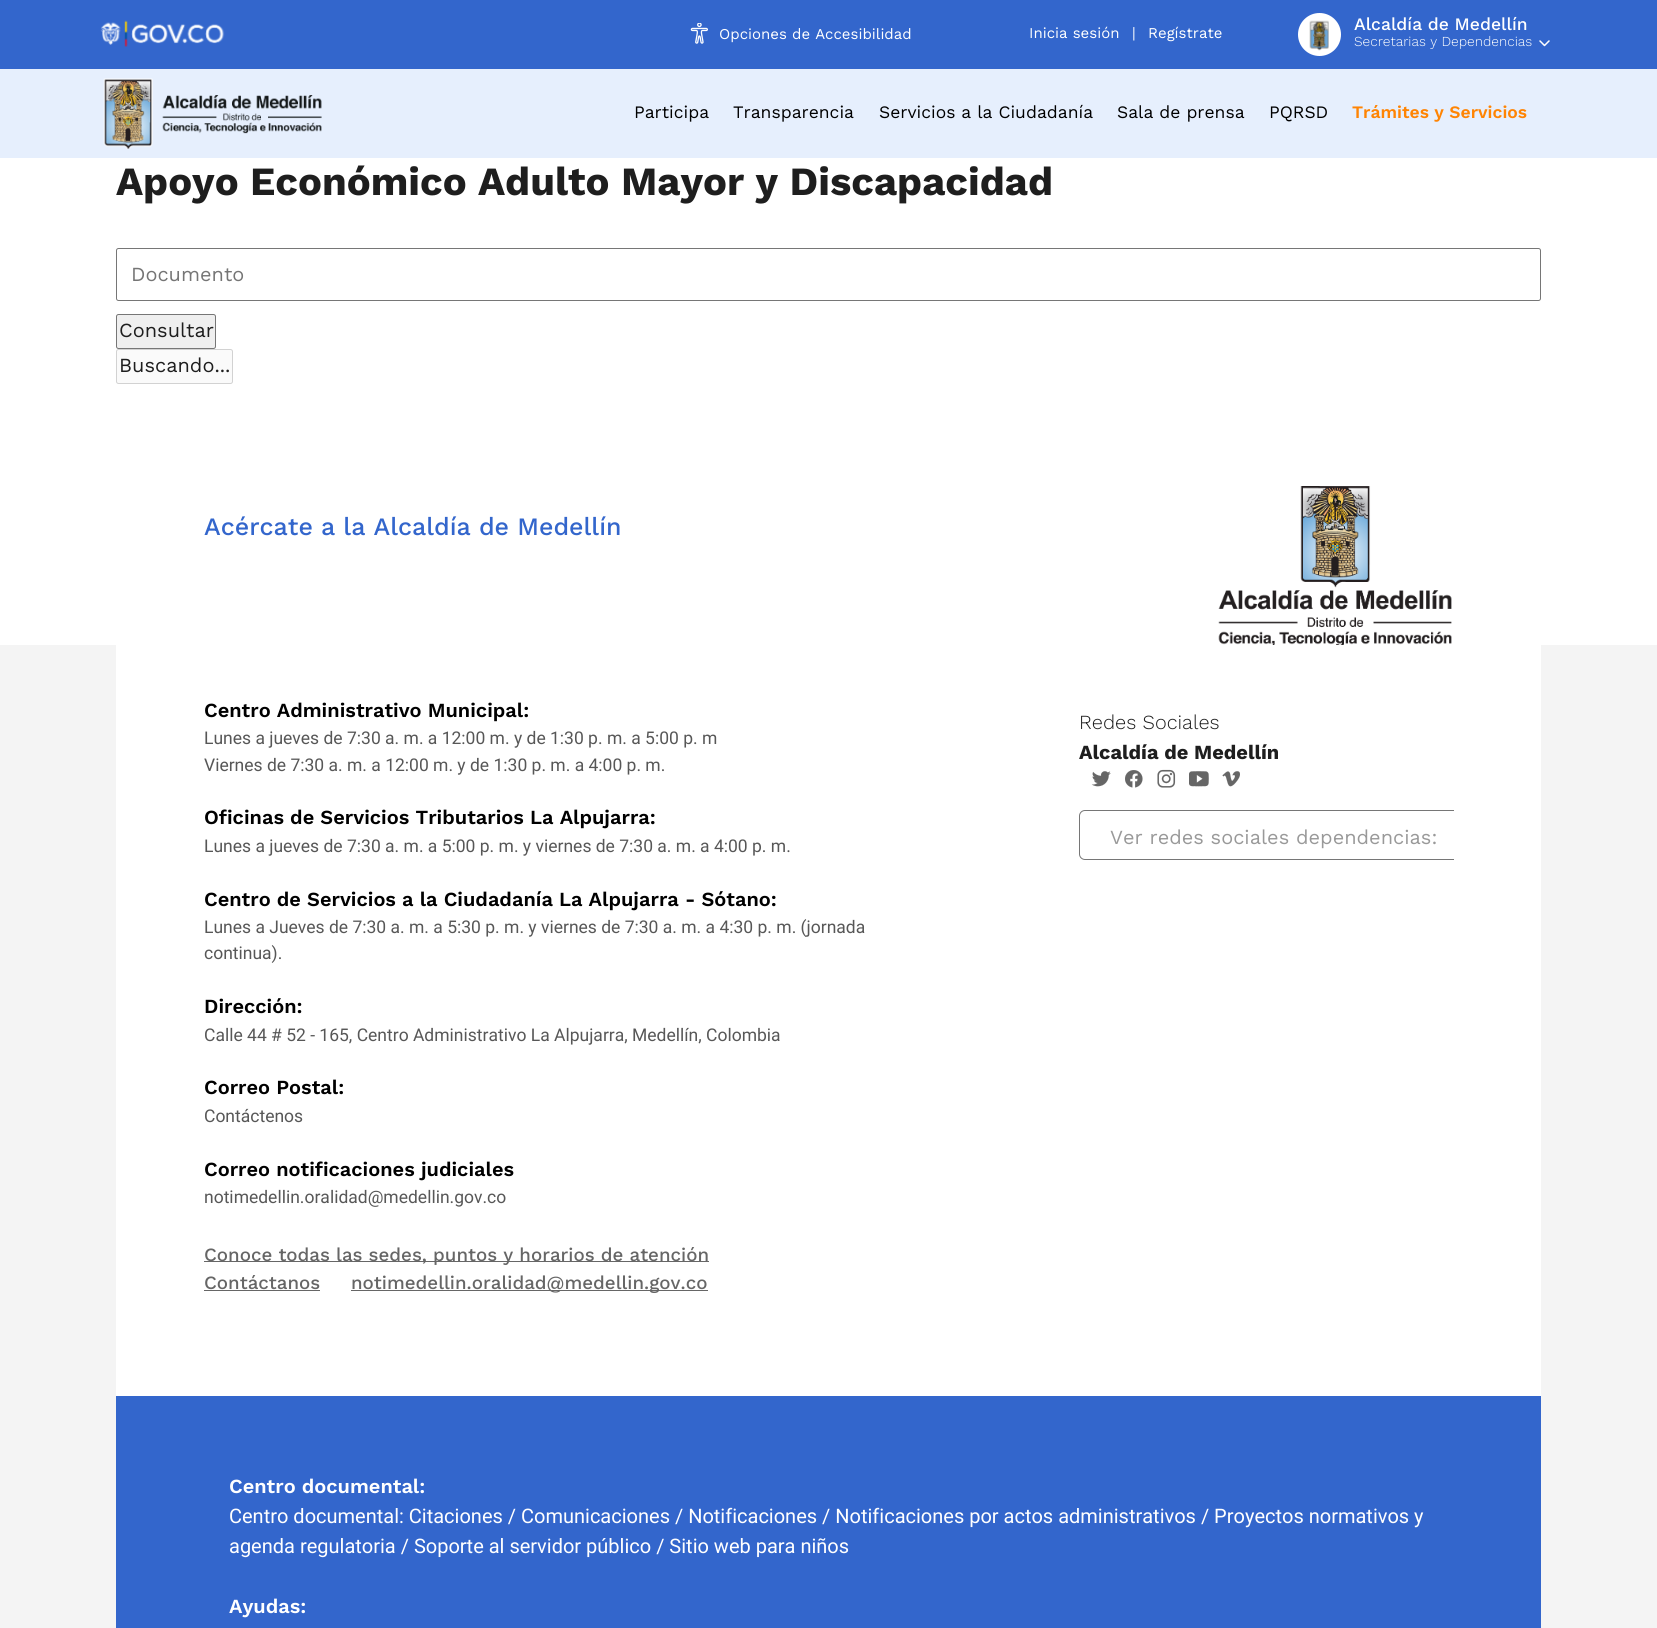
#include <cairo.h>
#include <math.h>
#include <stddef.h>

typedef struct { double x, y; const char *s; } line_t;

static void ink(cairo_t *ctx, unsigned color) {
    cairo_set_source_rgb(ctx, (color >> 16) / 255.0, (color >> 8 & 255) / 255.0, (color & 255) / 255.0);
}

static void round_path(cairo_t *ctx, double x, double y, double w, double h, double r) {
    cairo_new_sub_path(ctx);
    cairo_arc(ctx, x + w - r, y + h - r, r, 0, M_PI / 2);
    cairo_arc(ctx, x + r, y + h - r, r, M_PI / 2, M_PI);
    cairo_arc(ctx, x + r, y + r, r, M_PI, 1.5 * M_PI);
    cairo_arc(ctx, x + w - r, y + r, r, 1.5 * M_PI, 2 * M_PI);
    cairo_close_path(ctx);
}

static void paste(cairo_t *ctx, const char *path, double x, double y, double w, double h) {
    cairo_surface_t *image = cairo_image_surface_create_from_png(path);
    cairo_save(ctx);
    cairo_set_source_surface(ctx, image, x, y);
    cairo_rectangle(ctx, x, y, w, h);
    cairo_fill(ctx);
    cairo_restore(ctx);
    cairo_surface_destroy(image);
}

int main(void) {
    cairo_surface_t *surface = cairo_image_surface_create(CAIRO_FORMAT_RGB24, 1657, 1628);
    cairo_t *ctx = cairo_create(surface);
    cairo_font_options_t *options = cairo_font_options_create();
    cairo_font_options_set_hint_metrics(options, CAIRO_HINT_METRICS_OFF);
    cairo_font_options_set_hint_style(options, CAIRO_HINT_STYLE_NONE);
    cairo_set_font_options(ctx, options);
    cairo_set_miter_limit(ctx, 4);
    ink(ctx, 0xFFFFFF);
    cairo_paint(ctx);
    ink(ctx, 0x3366CC);
    cairo_rectangle(ctx, 0, 0, 1657, 69);
    cairo_fill(ctx);
    paste(ctx, "media/1.png", 100, 20, 125, 27);
    paste(ctx, "media/2.png", 690, 23, 18, 21);
    cairo_select_font_face(ctx, "Work Sans", CAIRO_FONT_SLANT_NORMAL, CAIRO_FONT_WEIGHT_NORMAL);
    cairo_set_font_size(ctx, 15);
    ink(ctx, 0xFFFFFF);
    {
        static const line_t items[] = {
            {719, 39, "Opciones de Accesibilidad"},
            {1029, 38, "Inicia sesión"},
            {1132, 38, "|"},
            {1148, 38, "Regístrate"},
        };
        for (size_t i = 0; i < sizeof items / sizeof *items; i++) {
            cairo_move_to(ctx, items[i].x, items[i].y);
            cairo_show_text(ctx, items[i].s);
        }
    }
    cairo_new_path(ctx);
    cairo_arc(ctx, 1319.5, 34.5, 21.5, 0, 2 * M_PI);
    cairo_fill(ctx);
    paste(ctx, "media/3.png", 1309, 20, 20, 31);
    cairo_select_font_face(ctx, "Work Sans Medium", CAIRO_FONT_SLANT_NORMAL, CAIRO_FONT_WEIGHT_NORMAL);
    cairo_set_font_size(ctx, 17.5);
    cairo_move_to(ctx, 1354, 30);
    cairo_show_text(ctx, "Alcaldía de Medellín");
    cairo_select_font_face(ctx, "Work Sans Light", CAIRO_FONT_SLANT_NORMAL, CAIRO_FONT_WEIGHT_NORMAL);
    cairo_set_font_size(ctx, 13.75);
    cairo_move_to(ctx, 1354, 46);
    cairo_show_text(ctx, "Secretarias y Dependencias");
    cairo_new_path(ctx);
    cairo_move_to(ctx, 1540, 41);
    cairo_line_to(ctx, 1544.5, 45.5);
    cairo_line_to(ctx, 1549, 41);
    cairo_set_line_width(ctx, 1.5);
    cairo_set_line_cap(ctx, CAIRO_LINE_CAP_ROUND);
    cairo_set_line_join(ctx, CAIRO_LINE_JOIN_ROUND);
    cairo_stroke(ctx);
    ink(ctx, 0xE6EFFD);
    cairo_rectangle(ctx, 0, 69, 1657, 89);
    cairo_fill(ctx);
    paste(ctx, "media/4.png", 103, 78, 219, 71);
    cairo_select_font_face(ctx, "Work Sans", CAIRO_FONT_SLANT_NORMAL, CAIRO_FONT_WEIGHT_NORMAL);
    cairo_set_font_size(ctx, 17.5);
    ink(ctx, 0x000000);
    {
        static const line_t items[] = {
            {634, 118, "Participa"},
            {733, 118, "Transparencia"},
            {879, 118, "Servicios a la Ciudadanía"},
            {1117, 118, "Sala de prensa"},
            {1269, 118, "PQRSD"},
        };
        for (size_t i = 0; i < sizeof items / sizeof *items; i++) {
            cairo_move_to(ctx, items[i].x, items[i].y);
            cairo_show_text(ctx, items[i].s);
        }
    }
    cairo_select_font_face(ctx, "Work Sans SemiBold", CAIRO_FONT_SLANT_NORMAL, CAIRO_FONT_WEIGHT_NORMAL);
    ink(ctx, 0xFF8403);
    cairo_move_to(ctx, 1352, 118);
    cairo_show_text(ctx, "Trámites y Servicios");
    cairo_select_font_face(ctx, "Work Sans", CAIRO_FONT_SLANT_NORMAL, CAIRO_FONT_WEIGHT_BOLD);
    cairo_set_font_size(ctx, 40);
    ink(ctx, 0x1E1E1E);
    cairo_move_to(ctx, 116, 195);
    cairo_show_text(ctx, "Apoyo Económico Adulto Mayor y Discapacidad");
    round_path(ctx, 116.5, 248.5, 1424, 52, 2);
    ink(ctx, 0x767676);
    cairo_set_line_width(ctx, 1);
    cairo_set_line_cap(ctx, CAIRO_LINE_CAP_BUTT);
    cairo_set_line_join(ctx, CAIRO_LINE_JOIN_MITER);
    cairo_stroke(ctx);
    cairo_select_font_face(ctx, "Work Sans", CAIRO_FONT_SLANT_NORMAL, CAIRO_FONT_WEIGHT_NORMAL);
    cairo_set_font_size(ctx, 20);
    ink(ctx, 0x757575);
    cairo_move_to(ctx, 131, 281);
    cairo_show_text(ctx, "Documento");
    ink(ctx, 0xEFEFEF);
    round_path(ctx, 116.5, 314.5, 99, 34, 2);
    cairo_fill_preserve(ctx);
    ink(ctx, 0x767676);
    cairo_stroke(ctx);
    ink(ctx, 0x1E1E1E);
    cairo_move_to(ctx, 119, 337);
    cairo_show_text(ctx, "Consultar");
    ink(ctx, 0xFAFAFA);
    round_path(ctx, 116.5, 349.5, 116, 34, 2);
    cairo_fill_preserve(ctx);
    ink(ctx, 0xD2D2D2);
    cairo_stroke(ctx);
    ink(ctx, 0x1E1E1E);
    cairo_move_to(ctx, 119, 372);
    cairo_show_text(ctx, "Buscando...");
    cairo_select_font_face(ctx, "Work Sans Medium", CAIRO_FONT_SLANT_NORMAL, CAIRO_FONT_WEIGHT_NORMAL);
    cairo_set_font_size(ctx, 25);
    ink(ctx, 0x3366CC);
    cairo_move_to(ctx, 204, 535);
    cairo_show_text(ctx, "Acércate a la Alcaldía de Medellín");
    paste(ctx, "media/5.png", 1218, 486, 234, 159);
    ink(ctx, 0xF4F4F4);
    cairo_rectangle(ctx, 0, 645, 1657, 983);
    cairo_fill(ctx);
    ink(ctx, 0xFFFFFF);
    cairo_rectangle(ctx, 116, 645, 1425, 751);
    cairo_fill(ctx);
    cairo_select_font_face(ctx, "Work Sans SemiBold", CAIRO_FONT_SLANT_NORMAL, CAIRO_FONT_WEIGHT_NORMAL);
    cairo_set_font_size(ctx, 20);
    ink(ctx, 0x000000);
    cairo_move_to(ctx, 204, 717);
    cairo_show_text(ctx, "Centro Administrativo Municipal:");
    cairo_select_font_face(ctx, "Roboto", CAIRO_FONT_SLANT_NORMAL, CAIRO_FONT_WEIGHT_NORMAL);
    cairo_set_font_size(ctx, 17.5);
    ink(ctx, 0x575757);
    cairo_move_to(ctx, 204, 744);
    cairo_show_text(ctx, "Lunes a jueves de 7:30 a. m. a 12:00 m. y de 1:30 p. m. a 5:00 p. m");
    cairo_move_to(ctx, 204, 771);
    cairo_show_text(ctx, "Viernes de 7:30 a. m. a 12:00 m. y de 1:30 p. m. a 4:00 p. m.");
    cairo_select_font_face(ctx, "Work Sans SemiBold", CAIRO_FONT_SLANT_NORMAL, CAIRO_FONT_WEIGHT_NORMAL);
    cairo_set_font_size(ctx, 20);
    ink(ctx, 0x000000);
    cairo_move_to(ctx, 204, 824);
    cairo_show_text(ctx, "Oficinas de Servicios Tributarios La Alpujarra:");
    cairo_select_font_face(ctx, "Roboto", CAIRO_FONT_SLANT_NORMAL, CAIRO_FONT_WEIGHT_NORMAL);
    cairo_set_font_size(ctx, 17.5);
    ink(ctx, 0x575757);
    cairo_move_to(ctx, 204, 852);
    cairo_show_text(ctx, "Lunes a jueves de 7:30 a. m. a 5:00 p. m. y viernes de 7:30 a. m. a 4:00 p. m.");
    cairo_select_font_face(ctx, "Work Sans SemiBold", CAIRO_FONT_SLANT_NORMAL, CAIRO_FONT_WEIGHT_NORMAL);
    cairo_set_font_size(ctx, 20);
    ink(ctx, 0x000000);
    cairo_move_to(ctx, 204, 906);
    cairo_show_text(ctx, "Centro de Servicios a la Ciudadanía La Alpujarra - Sótano:");
    cairo_select_font_face(ctx, "Roboto", CAIRO_FONT_SLANT_NORMAL, CAIRO_FONT_WEIGHT_NORMAL);
    cairo_set_font_size(ctx, 17.5);
    ink(ctx, 0x575757);
    cairo_move_to(ctx, 204, 933);
    cairo_show_text(ctx, "Lunes a Jueves de 7:30 a. m. a 5:30 p. m. y viernes de 7:30 a. m. a 4:30 p. m. (jornada");
    cairo_move_to(ctx, 204, 959);
    cairo_show_text(ctx, "continua).");
    cairo_select_font_face(ctx, "Work Sans SemiBold", CAIRO_FONT_SLANT_NORMAL, CAIRO_FONT_WEIGHT_NORMAL);
    cairo_set_font_size(ctx, 20);
    ink(ctx, 0x000000);
    cairo_move_to(ctx, 204, 1013);
    cairo_show_text(ctx, "Dirección:");
    cairo_select_font_face(ctx, "Roboto", CAIRO_FONT_SLANT_NORMAL, CAIRO_FONT_WEIGHT_NORMAL);
    cairo_set_font_size(ctx, 17.5);
    ink(ctx, 0x575757);
    cairo_move_to(ctx, 204, 1041);
    cairo_show_text(ctx, "Calle 44 # 52 - 165, Centro Administrativo La Alpujarra, Medellín, Colombia");
    cairo_select_font_face(ctx, "Work Sans SemiBold", CAIRO_FONT_SLANT_NORMAL, CAIRO_FONT_WEIGHT_NORMAL);
    cairo_set_font_size(ctx, 20);
    ink(ctx, 0x000000);
    cairo_move_to(ctx, 204, 1094);
    cairo_show_text(ctx, "Correo Postal:");
    cairo_select_font_face(ctx, "Roboto", CAIRO_FONT_SLANT_NORMAL, CAIRO_FONT_WEIGHT_NORMAL);
    cairo_set_font_size(ctx, 17.5);
    ink(ctx, 0x575757);
    cairo_move_to(ctx, 204, 1122);
    cairo_show_text(ctx, "Contáctenos");
    cairo_select_font_face(ctx, "Work Sans SemiBold", CAIRO_FONT_SLANT_NORMAL, CAIRO_FONT_WEIGHT_NORMAL);
    cairo_set_font_size(ctx, 20);
    ink(ctx, 0x000000);
    cairo_move_to(ctx, 204, 1176);
    cairo_show_text(ctx, "Correo notificaciones judiciales");
    cairo_select_font_face(ctx, "Roboto", CAIRO_FONT_SLANT_NORMAL, CAIRO_FONT_WEIGHT_NORMAL);
    cairo_set_font_size(ctx, 17.5);
    ink(ctx, 0x575757);
    cairo_move_to(ctx, 204, 1203);
    cairo_show_text(ctx, "notimedellin.oralidad@medellin.gov.co");
    ink(ctx, 0x666666);
    cairo_rectangle(ctx, 204, 1261, 505, 1);
    cairo_fill(ctx);
    cairo_select_font_face(ctx, "Work Sans Medium", CAIRO_FONT_SLANT_NORMAL, CAIRO_FONT_WEIGHT_NORMAL);
    cairo_set_font_size(ctx, 18.75);
    cairo_move_to(ctx, 204, 1261);
    cairo_show_text(ctx, "Conoce todas las sedes, puntos y horarios de atención");
    cairo_move_to(ctx, 204, 1289);
    cairo_show_text(ctx, "Contáctanos");
    cairo_rectangle(ctx, 204, 1290, 116, 1);
    cairo_fill(ctx);
    cairo_rectangle(ctx, 351, 1290, 357, 1);
    cairo_fill(ctx);
    cairo_move_to(ctx, 351, 1289);
    cairo_show_text(ctx, "notimedellin.oralidad@medellin.gov.co");
    cairo_select_font_face(ctx, "Work Sans Light", CAIRO_FONT_SLANT_NORMAL, CAIRO_FONT_WEIGHT_NORMAL);
    cairo_set_font_size(ctx, 20);
    ink(ctx, 0x1E1E1E);
    cairo_move_to(ctx, 1079, 729);
    cairo_show_text(ctx, "Redes Sociales");
    cairo_select_font_face(ctx, "Work Sans", CAIRO_FONT_SLANT_NORMAL, CAIRO_FONT_WEIGHT_BOLD);
    cairo_move_to(ctx, 1079, 759);
    cairo_show_text(ctx, "Alcaldía de Medellín");
    paste(ctx, "media/6.png", 1091, 771, 20, 16);
    paste(ctx, "media/7.png", 1125, 770, 18, 18);
    paste(ctx, "media/8.png", 1157, 769, 19, 19);
    paste(ctx, "media/9.png", 1189, 771, 20, 16);
    paste(ctx, "media/10.png", 1222, 771, 18, 16);
    cairo_save(ctx);
    cairo_rectangle(ctx, 1079, 670, 375, 203);
    cairo_clip(ctx);
    round_path(ctx, 1079.5, 810.5, 404, 49, 5.5);
    ink(ctx, 0x767676);
    cairo_stroke(ctx);
    cairo_restore(ctx);
    cairo_select_font_face(ctx, "Work Sans", CAIRO_FONT_SLANT_NORMAL, CAIRO_FONT_WEIGHT_NORMAL);
    ink(ctx, 0x999999);
    cairo_move_to(ctx, 1110, 844);
    cairo_show_text(ctx, "Ver redes sociales dependencias:");
    ink(ctx, 0x3366CC);
    cairo_rectangle(ctx, 116, 1396, 1425, 232);
    cairo_fill(ctx);
    cairo_select_font_face(ctx, "Work Sans SemiBold", CAIRO_FONT_SLANT_NORMAL, CAIRO_FONT_WEIGHT_NORMAL);
    ink(ctx, 0xFFFFFF);
    cairo_move_to(ctx, 229, 1493);
    cairo_show_text(ctx, "Centro documental:");
    cairo_select_font_face(ctx, "Roboto", CAIRO_FONT_SLANT_NORMAL, CAIRO_FONT_WEIGHT_NORMAL);
    cairo_move_to(ctx, 229, 1523);
    cairo_show_text(ctx, "Centro documental: Citaciones / Comunicaciones / Notificaciones / Notificaciones por actos administrativos / Proyectos normativos y");
    cairo_move_to(ctx, 229, 1553);
    cairo_show_text(ctx, "agenda regulatoria / Soporte al servidor público / Sitio web para niños");
    cairo_select_font_face(ctx, "Work Sans SemiBold", CAIRO_FONT_SLANT_NORMAL, CAIRO_FONT_WEIGHT_NORMAL);
    cairo_move_to(ctx, 229, 1613);
    cairo_show_text(ctx, "Ayudas:");
    cairo_surface_write_to_png(surface, "image.png");
    cairo_font_options_destroy(options);
    cairo_destroy(ctx);
    cairo_surface_destroy(surface);
    return 0;
}
